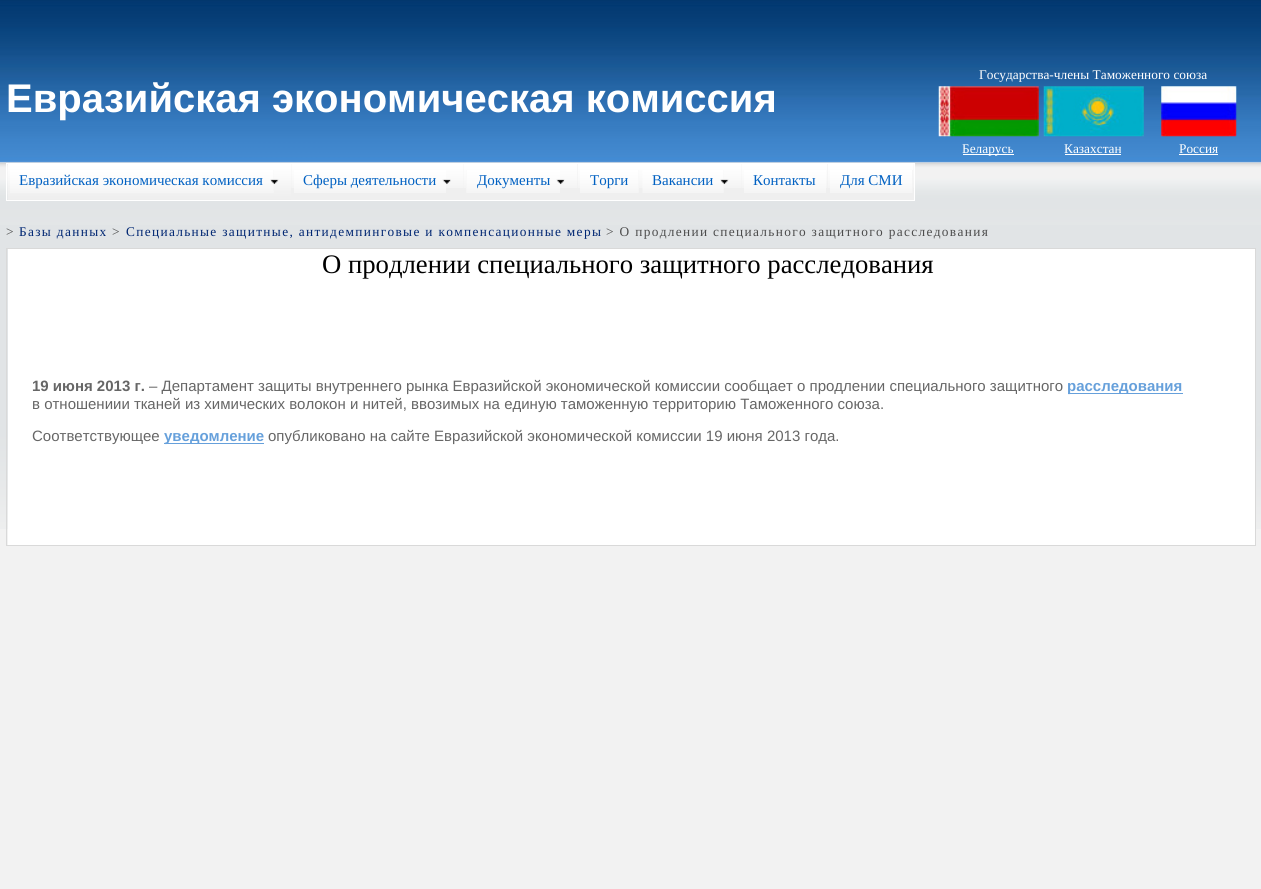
#include <cairo.h>
#include <math.h>
#include <stddef.h>

typedef struct { double x, y, w, h; unsigned color; } box_t;

static void ink(cairo_t *ctx, unsigned color) {
    cairo_set_source_rgb(ctx, (color >> 16) / 255.0, (color >> 8 & 255) / 255.0, (color & 255) / 255.0);
}

static void write_spaced(cairo_t *ctx, double x, double y, const char *s, double letter, double word) {
    cairo_move_to(ctx, x, y);
    while (*s) {
        char ch[5] = {0};
        int n = 0;
        do ch[n++] = *s++; while ((*s & 0xC0) == 0x80);
        cairo_show_text(ctx, ch);
        cairo_rel_move_to(ctx, letter + word * (*ch == ' '), 0);
    }
}

static void paste(cairo_t *ctx, const char *path, double x, double y, double w, double h) {
    cairo_surface_t *image = cairo_image_surface_create_from_png(path);
    cairo_save(ctx);
    cairo_set_source_surface(ctx, image, x, y);
    cairo_rectangle(ctx, x, y, w, h);
    cairo_fill(ctx);
    cairo_restore(ctx);
    cairo_surface_destroy(image);
}

int main(void) {
    cairo_surface_t *surface = cairo_image_surface_create(CAIRO_FORMAT_RGB24, 1261, 889);
    cairo_t *ctx = cairo_create(surface);
    cairo_font_options_t *options = cairo_font_options_create();
    cairo_font_options_set_hint_metrics(options, CAIRO_HINT_METRICS_OFF);
    cairo_font_options_set_hint_style(options, CAIRO_HINT_STYLE_NONE);
    cairo_set_font_options(ctx, options);
    cairo_set_miter_limit(ctx, 4);
    ink(ctx, 0xFFFFFF);
    cairo_paint(ctx);
    paste(ctx, "media/1.png", 0, 0, 1261, 163);
    cairo_select_font_face(ctx, "Liberation Sans", CAIRO_FONT_SLANT_NORMAL, CAIRO_FONT_WEIGHT_BOLD);
    cairo_set_font_size(ctx, 40);
    ink(ctx, 0xFFFFFF);
    cairo_move_to(ctx, 6, 112);
    cairo_show_text(ctx, "Евразийская экономическая комиссия");
    cairo_select_font_face(ctx, "Liberation Serif", CAIRO_FONT_SLANT_NORMAL, CAIRO_FONT_WEIGHT_NORMAL);
    cairo_set_font_size(ctx, 13.35);
    cairo_move_to(ctx, 979, 79);
    cairo_show_text(ctx, "Государства-члены Таможенного союза");
    paste(ctx, "media/2.png", 938, 86, 101, 51);
    paste(ctx, "media/3.png", 1043, 86, 101, 51);
    paste(ctx, "media/4.png", 1161, 86, 76, 51);
    cairo_rectangle(ctx, 963, 154, 51, 1);
    cairo_fill(ctx);
    cairo_move_to(ctx, 962, 153);
    cairo_show_text(ctx, "Беларусь");
    cairo_move_to(ctx, 1064, 153);
    cairo_show_text(ctx, "Казахстан");
    cairo_rectangle(ctx, 1065, 154, 56, 1);
    cairo_fill(ctx);
    cairo_move_to(ctx, 1179, 153);
    cairo_show_text(ctx, "Россия");
    cairo_rectangle(ctx, 1179, 154, 39, 1);
    cairo_fill(ctx);
    paste(ctx, "media/5.png", 0, 162, 1261, 63);
    cairo_rectangle(ctx, 6.5, 163.5, 908, 37);
    cairo_set_line_width(ctx, 1);
    cairo_stroke(ctx);
    paste(ctx, "media/6.png", 7, 164, 284, 36);
    ink(ctx, 0xEFEFEF);
    cairo_rectangle(ctx, 10, 170, 264, 21);
    cairo_fill(ctx);
    paste(ctx, "media/7.png", 10, 170, 264, 23);
    cairo_set_font_size(ctx, 15);
    ink(ctx, 0x0161C2);
    cairo_move_to(ctx, 19, 185);
    cairo_show_text(ctx, "Евразийская экономическая комиссия");
    paste(ctx, "media/8.png", 270, 179, 9, 6);
    ink(ctx, 0xEFEFEF);
    cairo_rectangle(ctx, 291, 164, 287, 36);
    cairo_fill(ctx);
    paste(ctx, "media/9.png", 291, 164, 173, 24);
    paste(ctx, "media/10.png", 294, 170, 152, 23);
    ink(ctx, 0x0161C2);
    cairo_move_to(ctx, 303, 185);
    cairo_show_text(ctx, "Сферы деятельности");
    paste(ctx, "media/11.png", 442, 179, 9, 6);
    paste(ctx, "media/12.png", 464, 164, 114, 24);
    ink(ctx, 0xEFEFEF);
    cairo_rectangle(ctx, 466, 170, 94, 18);
    cairo_fill(ctx);
    paste(ctx, "media/13.png", 466, 170, 94, 23);
    ink(ctx, 0x0161C2);
    cairo_move_to(ctx, 477, 185);
    cairo_show_text(ctx, "Документы");
    paste(ctx, "media/14.png", 556, 179, 9, 6);
    ink(ctx, 0xEFEFEF);
    cairo_rectangle(ctx, 578, 188, 163, 12);
    cairo_fill(ctx);
    paste(ctx, "media/15.png", 578, 164, 62, 24);
    cairo_rectangle(ctx, 580, 170, 59, 18);
    cairo_fill(ctx);
    paste(ctx, "media/16.png", 580, 170, 59, 23);
    ink(ctx, 0x0161C2);
    cairo_move_to(ctx, 590, 185);
    cairo_show_text(ctx, "Торги");
    paste(ctx, "media/17.png", 640, 164, 101, 24);
    ink(ctx, 0xEFEFEF);
    cairo_rectangle(ctx, 643, 170, 81, 18);
    cairo_fill(ctx);
    paste(ctx, "media/18.png", 642, 170, 82, 23);
    ink(ctx, 0x0161C2);
    cairo_move_to(ctx, 652, 185);
    cairo_show_text(ctx, "Вакансии");
    paste(ctx, "media/8.png", 720, 179, 9, 6);
    ink(ctx, 0xEFEFEF);
    cairo_rectangle(ctx, 741, 164, 173, 36);
    cairo_fill(ctx);
    paste(ctx, "media/19.png", 741, 164, 87, 24);
    paste(ctx, "media/20.png", 744, 170, 82, 23);
    ink(ctx, 0x0161C2);
    cairo_move_to(ctx, 753, 185);
    cairo_show_text(ctx, "Контакты");
    paste(ctx, "media/21.png", 828, 164, 86, 24);
    ink(ctx, 0xEFEFEF);
    cairo_rectangle(ctx, 830, 170, 83, 18);
    cairo_fill(ctx);
    paste(ctx, "media/22.png", 830, 170, 83, 23);
    ink(ctx, 0x0161C2);
    cairo_move_to(ctx, 840, 185);
    cairo_show_text(ctx, "Для СМИ");
    ink(ctx, 0xF2F2F2);
    cairo_rectangle(ctx, 0, 529, 1261, 360);
    cairo_fill(ctx);
    paste(ctx, "media/23.png", 0, 225, 1261, 304);
    cairo_set_font_size(ctx, 13.35);
    ink(ctx, 0x4C4C4C);
    write_spaced(ctx, 6, 236, ">", 1.33, 0);
    ink(ctx, 0x002672);
    write_spaced(ctx, 19, 236, "Базы данных", 1.33, 0);
    ink(ctx, 0x4C4C4C);
    write_spaced(ctx, 112, 236, ">", 1.33, 0);
    ink(ctx, 0x002672);
    write_spaced(ctx, 126, 236, "Специальные защитные, антидемпинговые и компенсационные меры", 1.33, 0);
    ink(ctx, 0x4C4C4C);
    write_spaced(ctx, 606, 236, "> О продлении специального защитного расследования", 1.33, 0);
    {
        static const box_t items[] = {
            {8, 249, 1247, 296, 0xFFFFFF},
            {6, 248, 1250, 1, 0xD9D9D9},
            {1255, 248, 1, 298, 0xD9D9D9},
            {6, 248, 1, 46, 0xD9D9D9},
        };
        for (size_t i = 0; i < sizeof items / sizeof *items; i++) {
            ink(ctx, items[i].color);
            cairo_rectangle(ctx, items[i].x, items[i].y, items[i].w, items[i].h);
            cairo_fill(ctx);
        }
    }
    cairo_set_font_size(ctx, 26.7);
    ink(ctx, 0x000000);
    cairo_move_to(ctx, 322, 273);
    cairo_show_text(ctx, "О продлении специального защитного расследования");
    ink(ctx, 0xD9D9D9);
    cairo_rectangle(ctx, 6, 545, 1250, 1);
    cairo_fill(ctx);
    cairo_rectangle(ctx, 6, 293, 1, 253);
    cairo_fill(ctx);
    cairo_select_font_face(ctx, "Liberation Sans", CAIRO_FONT_SLANT_NORMAL, CAIRO_FONT_WEIGHT_BOLD);
    cairo_set_font_size(ctx, 15);
    ink(ctx, 0x666666);
    cairo_move_to(ctx, 32, 391);
    cairo_show_text(ctx, "19 июня 2013 г.");
    cairo_select_font_face(ctx, "Liberation Sans", CAIRO_FONT_SLANT_NORMAL, CAIRO_FONT_WEIGHT_NORMAL);
    cairo_move_to(ctx, 149, 391);
    cairo_show_text(ctx, "– Департамент защиты внутреннего рынка Евразийской экономической комиссии сообщает о продлении специального защитного");
    ink(ctx, 0x66A0DB);
    cairo_rectangle(ctx, 1068, 393, 115, 1);
    cairo_fill(ctx);
    cairo_select_font_face(ctx, "Liberation Sans", CAIRO_FONT_SLANT_NORMAL, CAIRO_FONT_WEIGHT_BOLD);
    cairo_move_to(ctx, 1067, 391);
    cairo_show_text(ctx, "расследования");
    cairo_select_font_face(ctx, "Liberation Sans", CAIRO_FONT_SLANT_NORMAL, CAIRO_FONT_WEIGHT_NORMAL);
    ink(ctx, 0x666666);
    cairo_move_to(ctx, 32, 409);
    cairo_show_text(ctx, "в отношениии тканей из химических волокон и нитей, ввозимых на единую таможенную территорию Таможенного союза.");
    cairo_move_to(ctx, 32, 441);
    cairo_show_text(ctx, "Соответствующее");
    ink(ctx, 0x66A0DB);
    cairo_rectangle(ctx, 164, 443, 100, 1);
    cairo_fill(ctx);
    cairo_select_font_face(ctx, "Liberation Sans", CAIRO_FONT_SLANT_NORMAL, CAIRO_FONT_WEIGHT_BOLD);
    cairo_move_to(ctx, 164, 441);
    cairo_show_text(ctx, "уведомление");
    cairo_select_font_face(ctx, "Liberation Sans", CAIRO_FONT_SLANT_NORMAL, CAIRO_FONT_WEIGHT_NORMAL);
    ink(ctx, 0x666666);
    cairo_move_to(ctx, 268, 441);
    cairo_show_text(ctx, "опубликовано на сайте Евразийской экономической комиссии 19 июня 2013 года.");
    cairo_surface_write_to_png(surface, "image.png");
    cairo_font_options_destroy(options);
    cairo_destroy(ctx);
    cairo_surface_destroy(surface);
    return 0;
}
